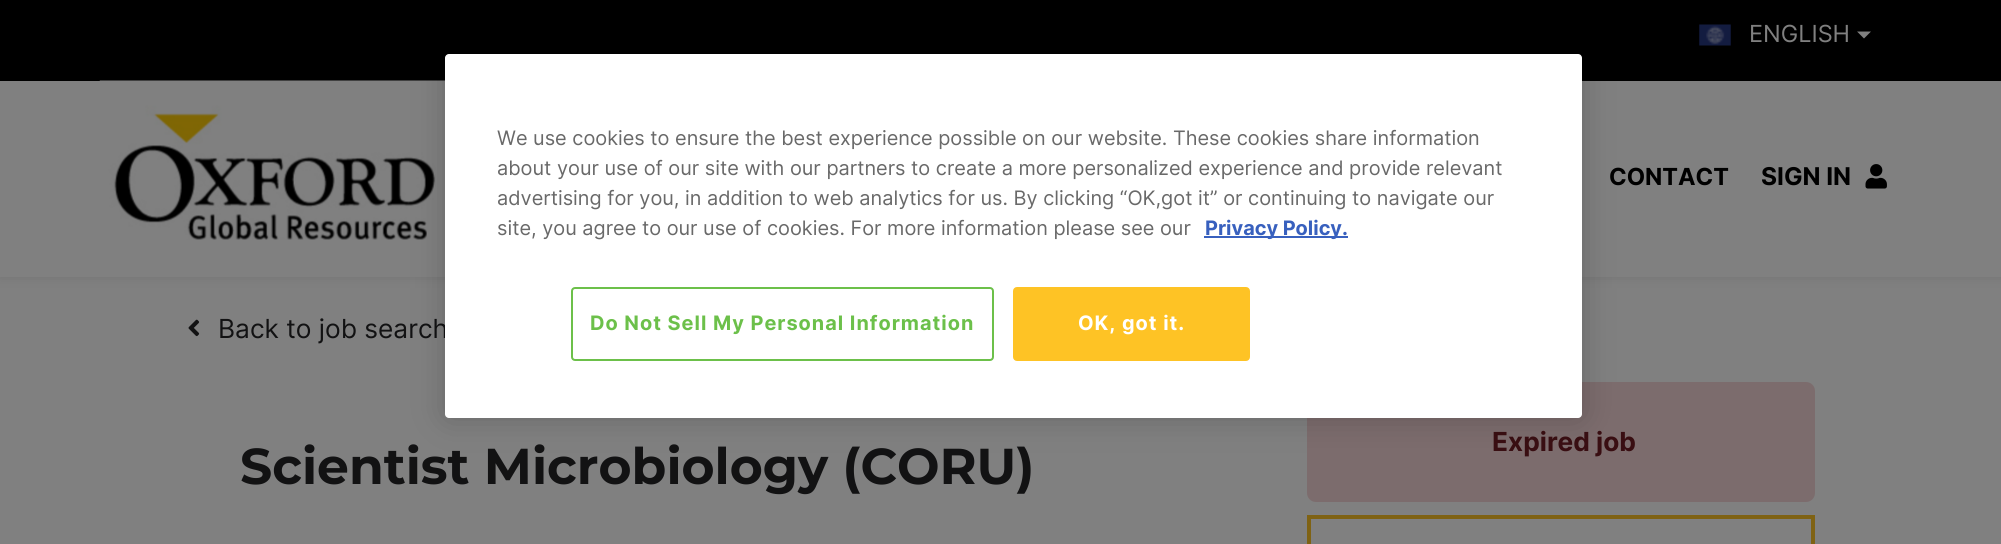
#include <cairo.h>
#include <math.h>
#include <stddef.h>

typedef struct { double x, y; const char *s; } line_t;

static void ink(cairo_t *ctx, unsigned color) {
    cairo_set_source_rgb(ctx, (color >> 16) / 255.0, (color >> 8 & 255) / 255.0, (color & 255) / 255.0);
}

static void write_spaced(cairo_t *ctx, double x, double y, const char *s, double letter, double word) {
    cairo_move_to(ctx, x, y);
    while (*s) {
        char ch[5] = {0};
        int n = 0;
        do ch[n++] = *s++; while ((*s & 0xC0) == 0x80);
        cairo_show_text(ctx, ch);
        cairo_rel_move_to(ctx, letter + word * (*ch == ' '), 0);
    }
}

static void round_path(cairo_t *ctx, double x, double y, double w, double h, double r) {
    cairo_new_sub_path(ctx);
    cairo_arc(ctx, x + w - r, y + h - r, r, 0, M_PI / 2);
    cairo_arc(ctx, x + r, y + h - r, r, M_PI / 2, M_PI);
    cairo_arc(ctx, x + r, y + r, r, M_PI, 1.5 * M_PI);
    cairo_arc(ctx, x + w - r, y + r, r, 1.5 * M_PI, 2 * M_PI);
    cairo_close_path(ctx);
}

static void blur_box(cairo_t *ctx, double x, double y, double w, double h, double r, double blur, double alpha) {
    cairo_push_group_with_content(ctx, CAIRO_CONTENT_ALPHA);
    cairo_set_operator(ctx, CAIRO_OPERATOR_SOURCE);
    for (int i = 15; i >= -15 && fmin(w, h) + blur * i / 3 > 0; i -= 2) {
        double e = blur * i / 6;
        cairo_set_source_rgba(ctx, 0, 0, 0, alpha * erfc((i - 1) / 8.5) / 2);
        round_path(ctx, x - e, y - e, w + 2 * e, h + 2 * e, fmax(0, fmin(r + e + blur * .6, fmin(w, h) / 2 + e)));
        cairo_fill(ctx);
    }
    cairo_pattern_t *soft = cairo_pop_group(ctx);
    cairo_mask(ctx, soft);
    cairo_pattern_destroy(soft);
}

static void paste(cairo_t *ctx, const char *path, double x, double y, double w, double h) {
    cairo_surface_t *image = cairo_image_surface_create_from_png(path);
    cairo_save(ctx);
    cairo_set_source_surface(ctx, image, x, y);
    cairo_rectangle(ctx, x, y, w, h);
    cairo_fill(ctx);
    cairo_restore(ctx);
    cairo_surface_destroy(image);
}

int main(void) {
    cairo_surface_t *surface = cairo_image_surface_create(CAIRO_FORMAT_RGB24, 2001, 544);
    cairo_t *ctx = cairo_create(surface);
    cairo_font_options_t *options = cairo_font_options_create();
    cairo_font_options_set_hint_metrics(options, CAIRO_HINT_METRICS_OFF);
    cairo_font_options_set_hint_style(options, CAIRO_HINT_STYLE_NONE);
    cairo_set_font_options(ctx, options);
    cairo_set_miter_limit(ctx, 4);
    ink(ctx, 0x808080);
    cairo_paint(ctx);
    ink(ctx, 0x000000);
    cairo_rectangle(ctx, 0, 0, 2001, 81);
    cairo_fill(ctx);
    paste(ctx, "media/1.png", 1699, 24, 32, 22);
    cairo_select_font_face(ctx, "Inter", CAIRO_FONT_SLANT_NORMAL, CAIRO_FONT_WEIGHT_NORMAL);
    cairo_set_font_size(ctx, 23.5);
    ink(ctx, 0x808080);
    cairo_move_to(ctx, 1749, 42);
    cairo_show_text(ctx, "ENGLISH");
    cairo_new_path(ctx);
    cairo_move_to(ctx, 1857, 31.5);
    cairo_line_to(ctx, 1871, 31.5);
    cairo_line_to(ctx, 1864, 38.5);
    cairo_close_path(ctx);
    cairo_fill(ctx);
    ink(ctx, 0x000000);
    blur_box(ctx, 0, 81, 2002, 196, 0, 6, 0.1);
    ink(ctx, 0x808080);
    cairo_rectangle(ctx, 0, 81, 2001, 196);
    cairo_fill(ctx);
    paste(ctx, "media/2.png", 99, 80, 346, 160);
    cairo_select_font_face(ctx, "Inter", CAIRO_FONT_SLANT_NORMAL, CAIRO_FONT_WEIGHT_BOLD);
    ink(ctx, 0x000000);
    cairo_move_to(ctx, 1609, 185);
    cairo_show_text(ctx, "CONTACT");
    cairo_set_font_size(ctx, 24.5);
    cairo_move_to(ctx, 1761, 185);
    cairo_show_text(ctx, "SIGN IN");
    paste(ctx, "media/3.png", 1865, 164, 22, 25);
    paste(ctx, "media/4.png", 188, 319, 12, 18);
    cairo_select_font_face(ctx, "Inter", CAIRO_FONT_SLANT_NORMAL, CAIRO_FONT_WEIGHT_NORMAL);
    cairo_set_font_size(ctx, 26.25);
    ink(ctx, 0x121213);
    cairo_move_to(ctx, 218, 338);
    cairo_show_text(ctx, "Back to job search");
    cairo_select_font_face(ctx, "Montserrat", CAIRO_FONT_SLANT_NORMAL, CAIRO_FONT_WEIGHT_BOLD);
    cairo_set_font_size(ctx, 50.4);
    cairo_move_to(ctx, 240, 484);
    cairo_show_text(ctx, "Scientist Microbiology (CORU)");
    ink(ctx, 0x7C6C6D);
    round_path(ctx, 1309, 384, 504, 116, 7);
    cairo_fill_preserve(ctx);
    cairo_set_line_width(ctx, 4);
    cairo_stroke(ctx);
    cairo_select_font_face(ctx, "Inter", CAIRO_FONT_SLANT_NORMAL, CAIRO_FONT_WEIGHT_BOLD);
    cairo_set_font_size(ctx, 26.25);
    ink(ctx, 0x390E12);
    cairo_move_to(ctx, 1492, 451);
    cairo_show_text(ctx, "Expired job");
    cairo_rectangle(ctx, 1309, 517, 504, 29);
    ink(ctx, 0x7F6213);
    cairo_stroke(ctx);
    ink(ctx, 0x000000);
    blur_box(ctx, 445, 54, 1137, 364, 4, 16, 0.2);
    ink(ctx, 0xFFFFFF);
    round_path(ctx, 445, 54, 1137, 364, 4);
    cairo_fill(ctx);
    cairo_select_font_face(ctx, "Inter", CAIRO_FONT_SLANT_NORMAL, CAIRO_FONT_WEIGHT_NORMAL);
    cairo_set_font_size(ctx, 19.92);
    ink(ctx, 0x696969);
    {
        static const line_t items[] = {
            {497, 145, "We use cookies to ensure the best experience possible on our website. These cookies share information"},
            {497, 175, "about your use of our site with our partners to create a more personalized experience and provide relevant"},
            {497, 205, "advertising for you, in addition to web analytics for us. By clicking “OK,got it” or continuing to navigate our"},
            {497, 235, "site, you agree to our use of cookies. For more information please see our"},
        };
        for (size_t i = 0; i < sizeof items / sizeof *items; i++) {
            cairo_move_to(ctx, items[i].x, items[i].y);
            cairo_show_text(ctx, items[i].s);
        }
    }
    ink(ctx, 0x3860BE);
    cairo_rectangle(ctx, 1204, 236, 144, 2);
    cairo_fill(ctx);
    cairo_select_font_face(ctx, "Inter", CAIRO_FONT_SLANT_NORMAL, CAIRO_FONT_WEIGHT_BOLD);
    cairo_move_to(ctx, 1205, 235);
    cairo_show_text(ctx, "Privacy Policy.");
    round_path(ctx, 572, 288, 421, 72, 3);
    ink(ctx, 0x6CC04A);
    cairo_set_line_width(ctx, 2);
    cairo_stroke(ctx);
    write_spaced(ctx, 590, 330, "Do Not Sell My Personal Information", 1, 0);
    ink(ctx, 0xFEC325);
    round_path(ctx, 1014, 288, 235, 72, 3);
    cairo_fill_preserve(ctx);
    cairo_stroke(ctx);
    ink(ctx, 0xFFFFFF);
    write_spaced(ctx, 1078, 330, "OK, got it.", 1, 0);
    cairo_surface_write_to_png(surface, "image.png");
    cairo_font_options_destroy(options);
    cairo_destroy(ctx);
    cairo_surface_destroy(surface);
    return 0;
}
